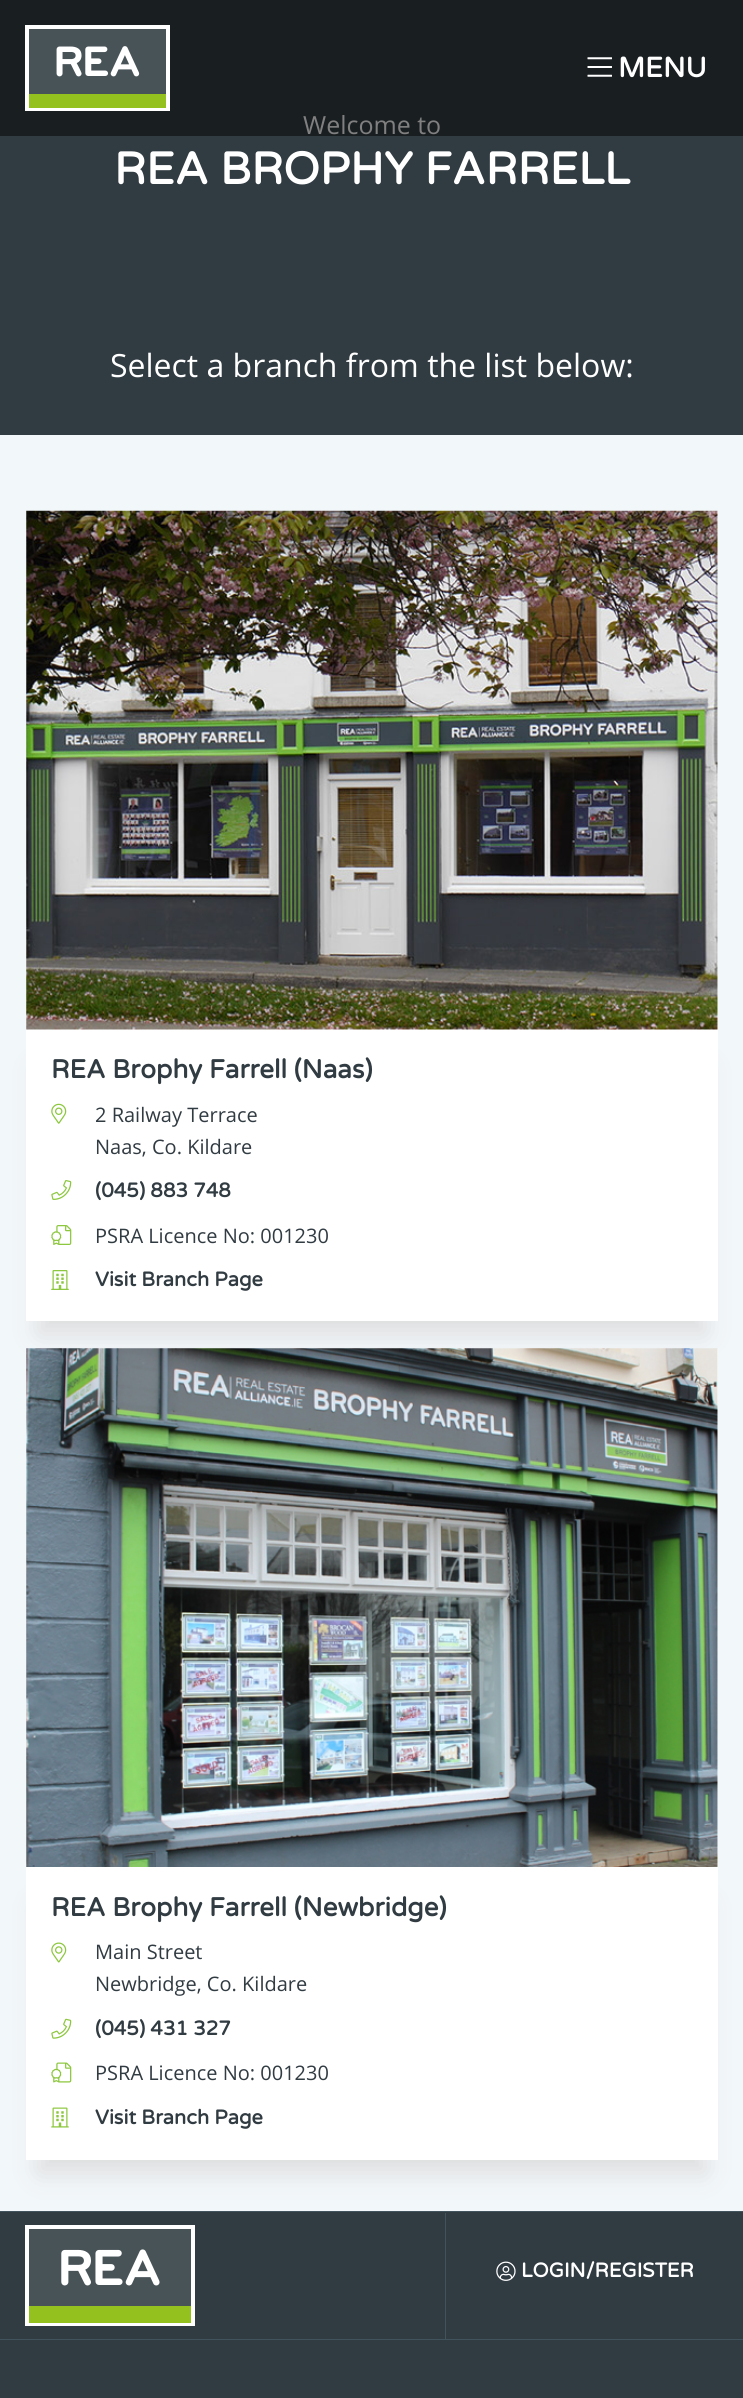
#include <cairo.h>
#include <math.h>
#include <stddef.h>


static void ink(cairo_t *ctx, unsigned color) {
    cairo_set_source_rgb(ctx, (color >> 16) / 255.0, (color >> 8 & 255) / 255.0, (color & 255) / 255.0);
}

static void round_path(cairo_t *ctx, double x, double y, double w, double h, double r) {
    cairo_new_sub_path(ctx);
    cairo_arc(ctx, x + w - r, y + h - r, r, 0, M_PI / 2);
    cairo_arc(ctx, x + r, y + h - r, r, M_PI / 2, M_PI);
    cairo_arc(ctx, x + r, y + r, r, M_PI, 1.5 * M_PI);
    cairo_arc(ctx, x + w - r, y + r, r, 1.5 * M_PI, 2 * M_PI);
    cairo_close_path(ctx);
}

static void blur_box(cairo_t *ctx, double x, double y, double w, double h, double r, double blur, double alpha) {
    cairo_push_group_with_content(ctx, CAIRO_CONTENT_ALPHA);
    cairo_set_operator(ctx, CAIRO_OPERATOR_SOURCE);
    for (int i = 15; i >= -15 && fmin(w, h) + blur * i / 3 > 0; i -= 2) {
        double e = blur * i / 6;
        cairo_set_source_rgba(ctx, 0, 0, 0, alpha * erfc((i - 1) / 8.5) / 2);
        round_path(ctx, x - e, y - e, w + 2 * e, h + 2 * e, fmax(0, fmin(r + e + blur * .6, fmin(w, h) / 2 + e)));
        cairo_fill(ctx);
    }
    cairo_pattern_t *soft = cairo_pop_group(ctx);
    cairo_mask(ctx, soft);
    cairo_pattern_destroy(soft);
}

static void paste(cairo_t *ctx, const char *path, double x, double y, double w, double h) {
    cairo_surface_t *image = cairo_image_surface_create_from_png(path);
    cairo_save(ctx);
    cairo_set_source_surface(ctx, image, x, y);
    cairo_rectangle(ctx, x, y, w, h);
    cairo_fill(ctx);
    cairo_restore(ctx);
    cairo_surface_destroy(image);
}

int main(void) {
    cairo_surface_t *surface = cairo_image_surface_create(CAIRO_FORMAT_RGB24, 743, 2398);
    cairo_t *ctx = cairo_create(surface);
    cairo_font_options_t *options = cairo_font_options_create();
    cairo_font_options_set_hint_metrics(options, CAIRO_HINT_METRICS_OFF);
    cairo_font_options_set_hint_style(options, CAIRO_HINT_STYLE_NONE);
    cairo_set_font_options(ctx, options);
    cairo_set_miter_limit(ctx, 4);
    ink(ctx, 0x313B42);
    cairo_paint(ctx);
    ink(ctx, 0x191E21);
    cairo_rectangle(ctx, 0, 0, 743, 136);
    cairo_fill(ctx);
    ink(ctx, 0xFFFFFF);
    cairo_rectangle(ctx, 25, 25, 145, 86);
    cairo_fill(ctx);
    paste(ctx, "media/1.png", 29, 29, 137, 79);
    paste(ctx, "media/2.png", 587, 57, 25, 20);
    cairo_select_font_face(ctx, "Varela Round", CAIRO_FONT_SLANT_NORMAL, CAIRO_FONT_WEIGHT_BOLD);
    cairo_set_font_size(ctx, 28);
    cairo_move_to(ctx, 618, 77);
    cairo_show_text(ctx, "MENU");
    cairo_select_font_face(ctx, "Open Sans", CAIRO_FONT_SLANT_NORMAL, CAIRO_FONT_WEIGHT_NORMAL);
    cairo_set_font_size(ctx, 25);
    ink(ctx, 0x808080);
    cairo_move_to(ctx, 303, 134);
    cairo_show_text(ctx, "Welcome to");
    cairo_select_font_face(ctx, "Varela Round", CAIRO_FONT_SLANT_NORMAL, CAIRO_FONT_WEIGHT_BOLD);
    cairo_set_font_size(ctx, 45);
    ink(ctx, 0xFFFFFF);
    cairo_move_to(ctx, 114, 184);
    cairo_show_text(ctx, "REA BROPHY FARRELL");
    cairo_select_font_face(ctx, "Open Sans", CAIRO_FONT_SLANT_NORMAL, CAIRO_FONT_WEIGHT_NORMAL);
    cairo_set_font_size(ctx, 32);
    cairo_move_to(ctx, 110, 377);
    cairo_show_text(ctx, "Select a branch from the list below:");
    ink(ctx, 0xF2F7FA);
    cairo_rectangle(ctx, 0, 435, 743, 1776);
    cairo_fill(ctx);
    ink(ctx, 0xFFFFFF);
    cairo_rectangle(ctx, 26, 511, 692, 519);
    cairo_fill(ctx);
    paste(ctx, "media/3.png", 26, 510, 692, 520);
    ink(ctx, 0xDDDDDD);
    blur_box(ctx, 39, 1068, 666, 266, 0, 12.5, 1);
    ink(ctx, 0xFFFFFF);
    cairo_rectangle(ctx, 26, 1030, 692, 291);
    cairo_fill(ctx);
    cairo_select_font_face(ctx, "Varela Round", CAIRO_FONT_SLANT_NORMAL, CAIRO_FONT_WEIGHT_BOLD);
    cairo_set_font_size(ctx, 26);
    ink(ctx, 0x313B42);
    cairo_move_to(ctx, 51, 1078);
    cairo_show_text(ctx, "REA Brophy Farrell (Naas)");
    paste(ctx, "media/4.png", 51, 1103, 16, 21);
    cairo_select_font_face(ctx, "Open Sans", CAIRO_FONT_SLANT_NORMAL, CAIRO_FONT_WEIGHT_NORMAL);
    cairo_set_font_size(ctx, 20);
    cairo_move_to(ctx, 95, 1122);
    cairo_show_text(ctx, "2 Railway Terrace");
    cairo_move_to(ctx, 95, 1154);
    cairo_show_text(ctx, "Naas, Co. Kildare");
    paste(ctx, "media/5.png", 51, 1180, 21, 20);
    cairo_select_font_face(ctx, "Varela Round", CAIRO_FONT_SLANT_NORMAL, CAIRO_FONT_WEIGHT_BOLD);
    cairo_move_to(ctx, 95, 1197);
    cairo_show_text(ctx, "(045) 883 748");
    paste(ctx, "media/6.png", 51, 1225, 21, 20);
    cairo_select_font_face(ctx, "Open Sans", CAIRO_FONT_SLANT_NORMAL, CAIRO_FONT_WEIGHT_NORMAL);
    cairo_move_to(ctx, 95, 1243);
    cairo_show_text(ctx, "PSRA Licence No: 001230");
    paste(ctx, "media/7.png", 51, 1270, 18, 20);
    cairo_select_font_face(ctx, "Varela Round", CAIRO_FONT_SLANT_NORMAL, CAIRO_FONT_WEIGHT_BOLD);
    cairo_move_to(ctx, 95, 1286);
    cairo_show_text(ctx, "Visit Branch Page");
    cairo_rectangle(ctx, 25.5, 1348.5, 693, 812);
    ink(ctx, 0xF2F7FA);
    cairo_set_line_width(ctx, 1);
    cairo_stroke(ctx);
    ink(ctx, 0xFFFFFF);
    cairo_rectangle(ctx, 26, 1349, 692, 519);
    cairo_fill(ctx);
    paste(ctx, "media/8.png", 26, 1348, 692, 519);
    ink(ctx, 0xDDDDDD);
    blur_box(ctx, 39, 1905, 666, 268, 0, 12.5, 1);
    ink(ctx, 0xFFFFFF);
    cairo_rectangle(ctx, 26, 1868, 692, 292);
    cairo_fill(ctx);
    cairo_set_font_size(ctx, 26);
    ink(ctx, 0x313B42);
    cairo_move_to(ctx, 51, 1916);
    cairo_show_text(ctx, "REA Brophy Farrell (Newbridge)");
    paste(ctx, "media/9.png", 51, 1942, 16, 21);
    cairo_select_font_face(ctx, "Open Sans", CAIRO_FONT_SLANT_NORMAL, CAIRO_FONT_WEIGHT_NORMAL);
    cairo_set_font_size(ctx, 20);
    cairo_move_to(ctx, 95, 1959);
    cairo_show_text(ctx, "Main Street");
    cairo_move_to(ctx, 95, 1991);
    cairo_show_text(ctx, "Newbridge, Co. Kildare");
    paste(ctx, "media/10.png", 51, 2018, 21, 21);
    cairo_select_font_face(ctx, "Varela Round", CAIRO_FONT_SLANT_NORMAL, CAIRO_FONT_WEIGHT_BOLD);
    cairo_move_to(ctx, 95, 2035);
    cairo_show_text(ctx, "(045) 431 327");
    paste(ctx, "media/11.png", 51, 2062, 21, 21);
    cairo_select_font_face(ctx, "Open Sans", CAIRO_FONT_SLANT_NORMAL, CAIRO_FONT_WEIGHT_NORMAL);
    cairo_move_to(ctx, 95, 2080);
    cairo_show_text(ctx, "PSRA Licence No: 001230");
    paste(ctx, "media/12.png", 51, 2107, 18, 21);
    cairo_select_font_face(ctx, "Varela Round", CAIRO_FONT_SLANT_NORMAL, CAIRO_FONT_WEIGHT_BOLD);
    cairo_move_to(ctx, 95, 2124);
    cairo_show_text(ctx, "Visit Branch Page");
    ink(ctx, 0x41535D);
    cairo_rectangle(ctx, 0, 2211, 743, 1);
    cairo_fill(ctx);
    ink(ctx, 0xFFFFFF);
    cairo_rectangle(ctx, 25, 2225, 170, 101);
    cairo_fill(ctx);
    paste(ctx, "media/13.png", 29, 2229, 162, 94);
    ink(ctx, 0x41535D);
    cairo_rectangle(ctx, 445, 2213, 1, 126);
    cairo_fill(ctx);
    paste(ctx, "media/14.png", 496, 2261, 20, 20);
    ink(ctx, 0xFFFFFF);
    cairo_move_to(ctx, 521, 2277);
    cairo_show_text(ctx, "LOGIN/REGISTER");
    ink(ctx, 0x41535D);
    cairo_rectangle(ctx, 0, 2339, 743, 1);
    cairo_fill(ctx);
    cairo_surface_write_to_png(surface, "image.png");
    cairo_font_options_destroy(options);
    cairo_destroy(ctx);
    cairo_surface_destroy(surface);
    return 0;
}
